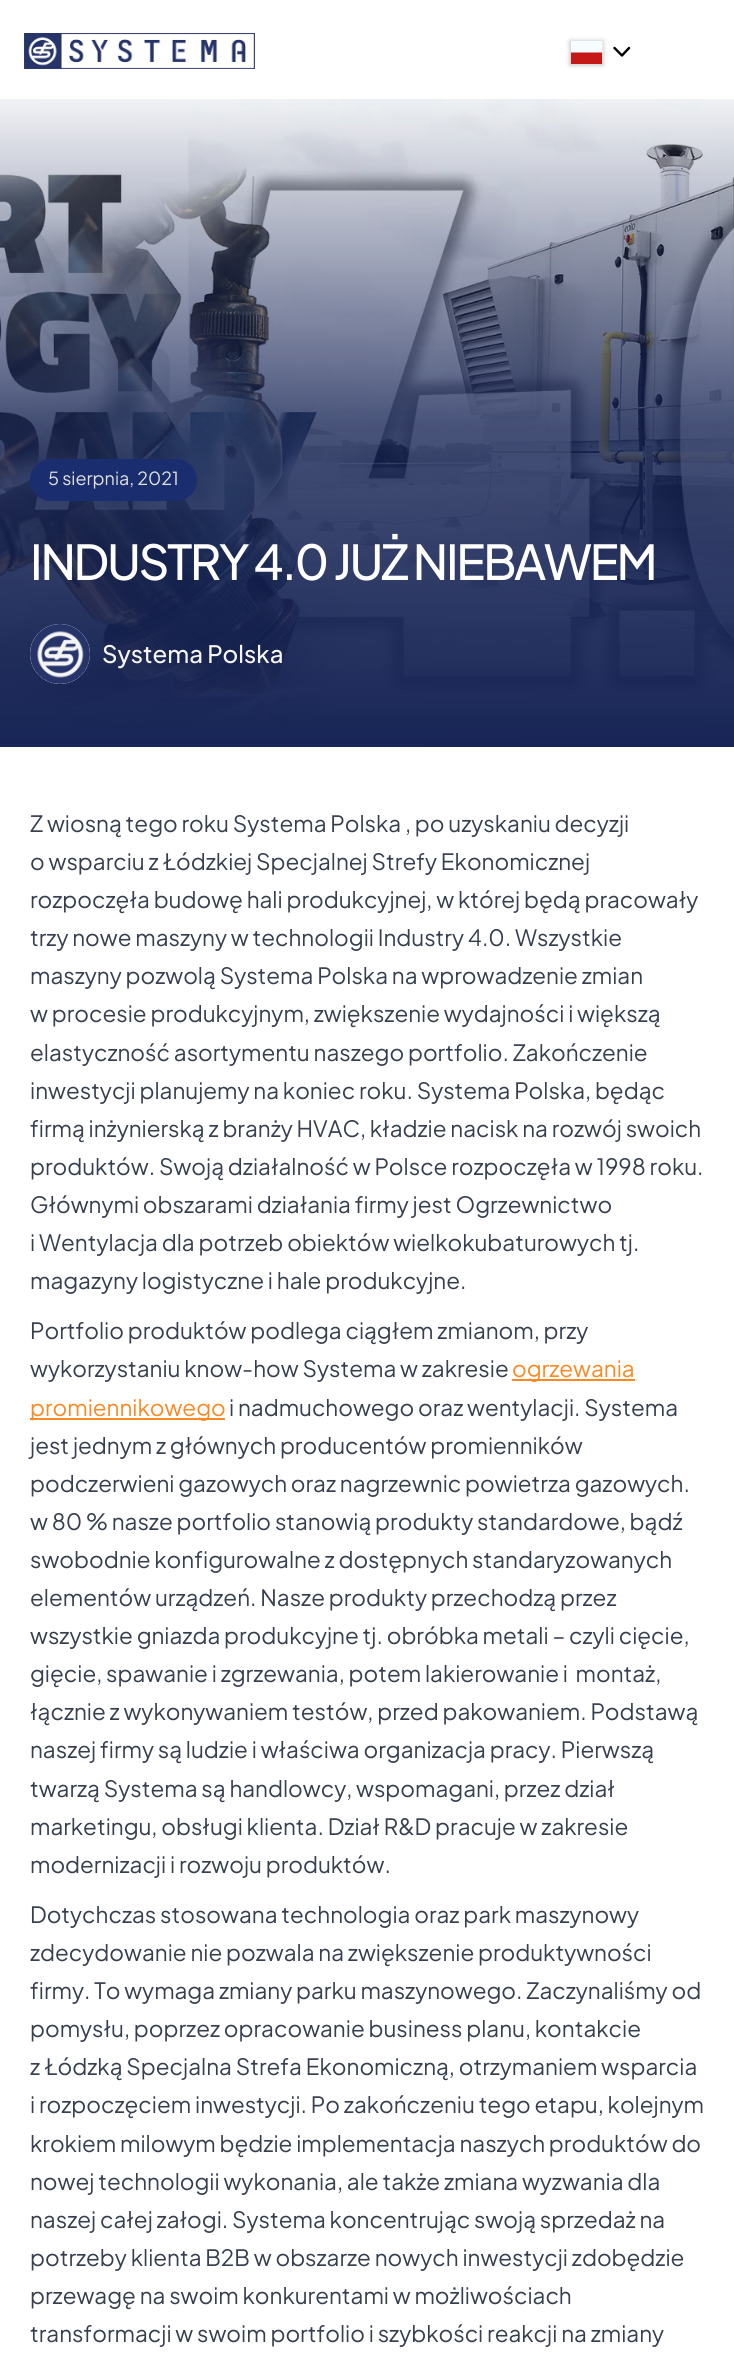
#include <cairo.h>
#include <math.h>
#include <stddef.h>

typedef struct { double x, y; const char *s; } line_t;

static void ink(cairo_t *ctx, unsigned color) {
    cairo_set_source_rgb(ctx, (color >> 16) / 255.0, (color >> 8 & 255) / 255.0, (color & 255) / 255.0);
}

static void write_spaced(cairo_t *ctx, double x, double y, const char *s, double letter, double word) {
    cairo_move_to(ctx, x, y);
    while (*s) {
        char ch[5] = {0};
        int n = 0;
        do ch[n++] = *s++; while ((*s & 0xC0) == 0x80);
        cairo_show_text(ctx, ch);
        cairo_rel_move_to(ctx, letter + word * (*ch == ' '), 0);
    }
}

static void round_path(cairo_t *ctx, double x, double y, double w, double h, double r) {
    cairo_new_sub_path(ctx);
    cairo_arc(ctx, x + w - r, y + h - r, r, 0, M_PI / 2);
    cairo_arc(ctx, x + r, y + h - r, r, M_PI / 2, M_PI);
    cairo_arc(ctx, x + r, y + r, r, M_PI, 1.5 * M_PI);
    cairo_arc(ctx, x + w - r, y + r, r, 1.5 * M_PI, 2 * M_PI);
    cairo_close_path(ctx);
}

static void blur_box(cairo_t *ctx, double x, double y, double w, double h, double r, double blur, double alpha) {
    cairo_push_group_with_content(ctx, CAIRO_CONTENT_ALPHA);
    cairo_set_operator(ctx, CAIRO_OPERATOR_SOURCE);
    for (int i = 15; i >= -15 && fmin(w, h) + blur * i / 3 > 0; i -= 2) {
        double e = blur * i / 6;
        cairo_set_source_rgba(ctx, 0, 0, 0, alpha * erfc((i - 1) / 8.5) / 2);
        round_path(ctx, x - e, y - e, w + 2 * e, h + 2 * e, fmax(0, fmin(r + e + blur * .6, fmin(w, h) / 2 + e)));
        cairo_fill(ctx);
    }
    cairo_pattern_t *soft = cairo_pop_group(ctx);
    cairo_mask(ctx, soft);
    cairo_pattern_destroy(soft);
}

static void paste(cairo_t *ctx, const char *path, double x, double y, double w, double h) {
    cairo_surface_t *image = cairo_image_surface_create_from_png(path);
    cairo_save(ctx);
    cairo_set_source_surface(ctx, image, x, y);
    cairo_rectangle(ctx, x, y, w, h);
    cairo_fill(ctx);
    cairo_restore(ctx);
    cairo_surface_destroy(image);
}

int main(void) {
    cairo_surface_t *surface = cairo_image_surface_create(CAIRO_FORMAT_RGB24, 734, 2362);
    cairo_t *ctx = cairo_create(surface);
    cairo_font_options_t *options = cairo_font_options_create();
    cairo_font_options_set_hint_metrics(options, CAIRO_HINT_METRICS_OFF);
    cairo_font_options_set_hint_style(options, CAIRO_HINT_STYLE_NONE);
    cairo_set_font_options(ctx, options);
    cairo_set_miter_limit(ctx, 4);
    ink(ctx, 0xFFFFFF);
    cairo_paint(ctx);
    paste(ctx, "media/1.png", 24, 33, 231, 36);
    cairo_new_path(ctx);
    cairo_move_to(ctx, 614.5, 48);
    cairo_line_to(ctx, 622, 55.5);
    cairo_line_to(ctx, 629, 48);
    ink(ctx, 0x000000);
    cairo_set_line_width(ctx, 2.4);
    cairo_set_line_cap(ctx, CAIRO_LINE_CAP_ROUND);
    cairo_set_line_join(ctx, CAIRO_LINE_JOIN_ROUND);
    cairo_stroke(ctx);
    ink(ctx, 0x000000);
    blur_box(ctx, 570, 41, 33, 24, 0, 2.5, 0.25);
    paste(ctx, "media/2.png", 571, 41, 32, 23);
    paste(ctx, "media/3.png", 0, 99, 734, 648);
    ink(ctx, 0x1A2D6F);
    round_path(ctx, 30, 459, 167, 42, 21);
    cairo_fill(ctx);
    cairo_select_font_face(ctx, "Plus Jakarta Sans", CAIRO_FONT_SLANT_NORMAL, CAIRO_FONT_WEIGHT_NORMAL);
    cairo_set_font_size(ctx, 18);
    ink(ctx, 0xE0E0E0);
    cairo_move_to(ctx, 48, 485);
    cairo_show_text(ctx, "5 sierpnia, 2021");
    cairo_select_font_face(ctx, "Plus Jakarta Sans Medium", CAIRO_FONT_SLANT_NORMAL, CAIRO_FONT_WEIGHT_NORMAL);
    cairo_set_font_size(ctx, 48);
    ink(ctx, 0xFFFFFF);
    write_spaced(ctx, 30, 580, "INDUSTRY 4.0 JUŻ NIEBAWEM", -2.25, 0);
    ink(ctx, 0xF5F5F5);
    cairo_new_path(ctx);
    cairo_arc(ctx, 60, 654, 30, 0, 2 * M_PI);
    cairo_fill(ctx);
    paste(ctx, "media/4.png", 30, 624, 60, 60);
    cairo_set_font_size(ctx, 24);
    cairo_move_to(ctx, 102, 663);
    cairo_show_text(ctx, "Systema Polska");
    cairo_select_font_face(ctx, "Plus Jakarta Sans", CAIRO_FONT_SLANT_NORMAL, CAIRO_FONT_WEIGHT_NORMAL);
    cairo_set_font_size(ctx, 22.45);
    ink(ctx, 0x363F4E);
    {
        static const line_t items[] = {
            {30, 832, "Z wiosną tego roku Systema Polska , po uzyskaniu decyzji"},
            {30, 870, "o wsparciu z Łódzkiej Specjalnej Strefy Ekonomicznej"},
            {30, 908, "rozpoczęła budowę hali produkcyjnej, w której będą pracowały"},
            {30, 946, "trzy nowe maszyny w technologii Industry 4.0. Wszystkie"},
            {30, 984, "maszyny pozwolą Systema Polska na wprowadzenie zmian"},
            {30, 1022, "w procesie produkcyjnym, zwiększenie wydajności i większą"},
            {30, 1061, "elastyczność asortymentu naszego portfolio. Zakończenie"},
            {30, 1099, "inwestycji planujemy na koniec roku. Systema Polska, będąc"},
            {30, 1137, "firmą inżynierską z branży HVAC, kładzie nacisk na rozwój swoich"},
            {30, 1175, "produktów. Swoją działalność w Polsce rozpoczęła w 1998 roku."},
            {30, 1213, "Głównymi obszarami działania firmy jest Ogrzewnictwo"},
            {30, 1251, "i Wentylacja dla potrzeb obiektów wielkokubaturowych tj."},
            {30, 1289, "magazyny logistyczne i hale produkcyjne."},
            {30, 1339, "Portfolio produktów podlega ciągłem zmianom, przy"},
            {30, 1377, "wykorzystaniu know-how Systema w zakresie"},
        };
        for (size_t i = 0; i < sizeof items / sizeof *items; i++) {
            cairo_move_to(ctx, items[i].x, items[i].y);
            cairo_show_text(ctx, items[i].s);
        }
    }
    ink(ctx, 0xFB8923);
    cairo_rectangle(ctx, 512, 1379, 123, 2);
    cairo_fill(ctx);
    cairo_move_to(ctx, 512, 1377);
    cairo_show_text(ctx, "ogrzewania");
    cairo_rectangle(ctx, 30, 1418, 195, 2);
    cairo_fill(ctx);
    cairo_move_to(ctx, 30, 1416);
    cairo_show_text(ctx, "promiennikowego");
    ink(ctx, 0x363F4E);
    {
        static const line_t items[] = {
            {229, 1416, "i nadmuchowego oraz wentylacji. Systema"},
            {30, 1454, "jest jednym z głównych producentów promienników"},
            {30, 1492, "podczerwieni gazowych oraz nagrzewnic powietrza gazowych."},
            {30, 1530, "w 80 % nasze portfolio stanowią produkty standardowe, bądź"},
            {30, 1568, "swobodnie konfigurowalne z dostępnych standaryzowanych"},
            {30, 1606, "elementów urządzeń. Nasze produkty przechodzą przez"},
            {30, 1644, "wszystkie gniazda produkcyjne tj. obróbka metali – czyli cięcie,"},
            {30, 1682, "gięcie, spawanie i zgrzewania, potem lakierowanie i  montaż,"},
            {30, 1720, "łącznie z wykonywaniem testów, przed pakowaniem. Podstawą"},
            {30, 1758, "naszej firmy są ludzie i właściwa organizacja pracy. Pierwszą"},
            {30, 1797, "twarzą Systema są handlowcy, wspomagani, przez dział"},
            {30, 1835, "marketingu, obsługi klienta. Dział R&D pracuje w zakresie"},
            {30, 1873, "modernizacji i rozwoju produktów."},
            {30, 1923, "Dotychczas stosowana technologia oraz park maszynowy"},
            {30, 1961, "zdecydowanie nie pozwala na zwiększenie produktywności"},
            {30, 1999, "firmy. To wymaga zmiany parku maszynowego. Zaczynaliśmy od"},
            {30, 2037, "pomysłu, poprzez opracowanie business planu, kontakcie"},
            {30, 2075, "z Łódzką Specjalna Strefa Ekonomiczną, otrzymaniem wsparcia"},
            {30, 2113, "i rozpoczęciem inwestycji. Po zakończeniu tego etapu, kolejnym"},
            {30, 2152, "krokiem milowym będzie implementacja naszych produktów do"},
            {30, 2190, "nowej technologii wykonania, ale także zmiana wyzwania dla"},
            {30, 2228, "naszej całej załogi. Systema koncentrując swoją sprzedaż na"},
            {30, 2266, "potrzeby klienta B2B w obszarze nowych inwestycji zdobędzie"},
            {30, 2304, "przewagę na swoim konkurentami w możliwościach"},
            {30, 2342, "transformacji w swoim portfolio i szybkości reakcji na zmiany"},
        };
        for (size_t i = 0; i < sizeof items / sizeof *items; i++) {
            cairo_move_to(ctx, items[i].x, items[i].y);
            cairo_show_text(ctx, items[i].s);
        }
    }
    cairo_surface_write_to_png(surface, "image.png");
    cairo_font_options_destroy(options);
    cairo_destroy(ctx);
    cairo_surface_destroy(surface);
    return 0;
}
